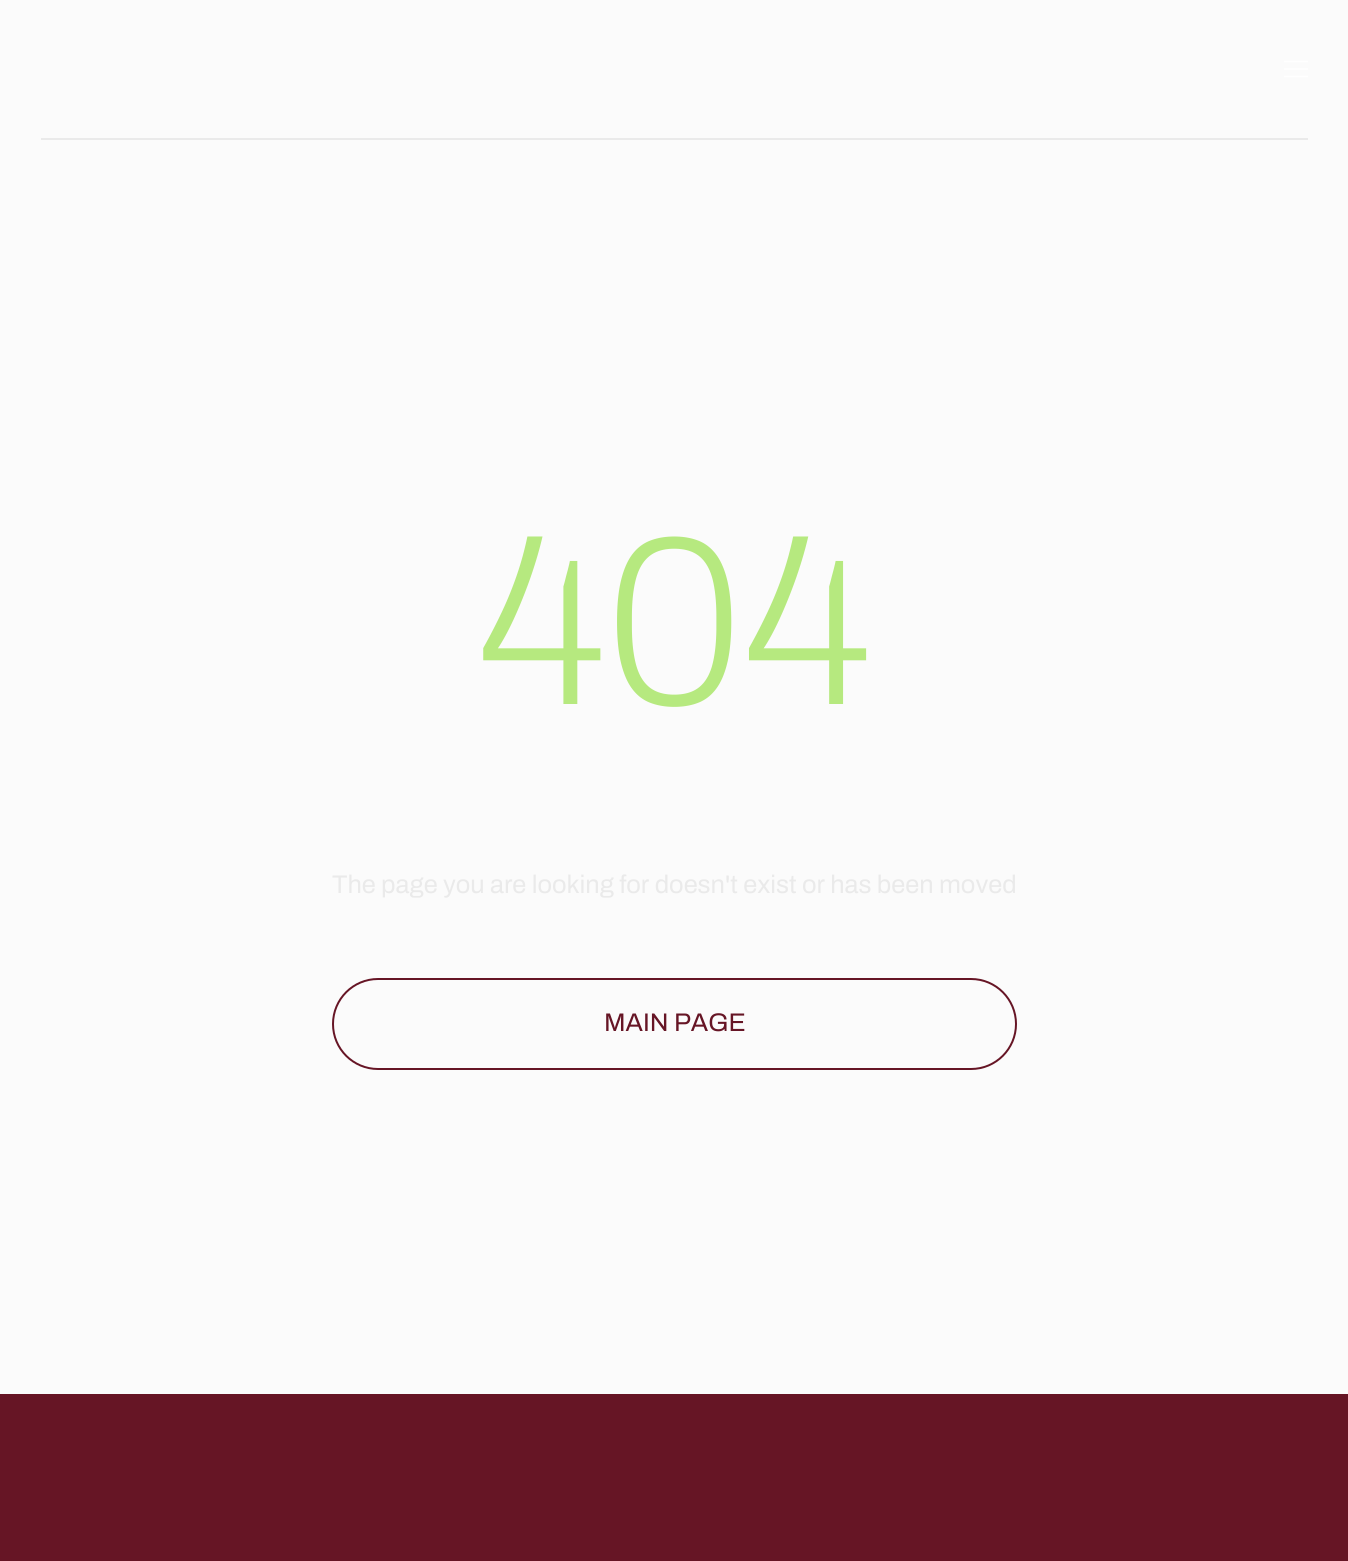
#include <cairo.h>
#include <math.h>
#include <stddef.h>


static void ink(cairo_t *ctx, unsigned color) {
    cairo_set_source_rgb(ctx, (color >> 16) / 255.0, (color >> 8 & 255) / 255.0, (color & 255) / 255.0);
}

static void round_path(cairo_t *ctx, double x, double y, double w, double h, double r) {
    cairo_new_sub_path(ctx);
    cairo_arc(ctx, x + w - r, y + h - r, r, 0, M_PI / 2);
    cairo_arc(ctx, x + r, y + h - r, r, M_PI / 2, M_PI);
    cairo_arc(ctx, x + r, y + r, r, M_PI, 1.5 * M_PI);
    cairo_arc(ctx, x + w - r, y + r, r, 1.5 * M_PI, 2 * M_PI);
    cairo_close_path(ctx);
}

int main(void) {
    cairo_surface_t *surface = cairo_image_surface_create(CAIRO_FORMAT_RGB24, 1348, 1561);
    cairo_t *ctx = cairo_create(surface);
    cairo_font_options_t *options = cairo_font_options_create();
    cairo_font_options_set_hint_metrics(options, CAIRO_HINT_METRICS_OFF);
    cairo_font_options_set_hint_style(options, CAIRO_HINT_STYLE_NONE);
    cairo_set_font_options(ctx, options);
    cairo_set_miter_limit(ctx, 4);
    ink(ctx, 0xFBFBFB);
    cairo_paint(ctx);
    ink(ctx, 0xEAEAEA);
    cairo_rectangle(ctx, 41, 138, 1267, 2);
    cairo_fill(ctx);
    cairo_save(ctx);
    cairo_rectangle(ctx, 1284, 51, 24, 36);
    cairo_clip(ctx);
    cairo_new_path(ctx);
    cairo_move_to(ctx, 1310.5, 76.5);
    cairo_line_to(ctx, 1281.5, 76.5);
    ink(ctx, 0xFFFFFF);
    cairo_set_line_width(ctx, 1.5);
    cairo_stroke(ctx);
    cairo_restore(ctx);
    ink(ctx, 0xFEFEFE);
    cairo_rectangle(ctx, 1284, 68, 24, 2);
    cairo_fill(ctx);
    cairo_save(ctx);
    cairo_rectangle(ctx, 1284, 51, 24, 36);
    cairo_clip(ctx);
    cairo_new_path(ctx);
    cairo_move_to(ctx, 1310.5, 61.5);
    cairo_line_to(ctx, 1281.5, 61.5);
    ink(ctx, 0xFFFFFF);
    cairo_set_line_width(ctx, 1.5);
    cairo_stroke(ctx);
    cairo_restore(ctx);
    cairo_select_font_face(ctx, "Archivo ExtraLight", CAIRO_FONT_SLANT_NORMAL, CAIRO_FONT_WEIGHT_NORMAL);
    cairo_set_font_size(ctx, 240);
    ink(ctx, 0xB6E97F);
    cairo_move_to(ctx, 477, 704);
    cairo_show_text(ctx, "404");
    cairo_select_font_face(ctx, "Archivo", CAIRO_FONT_SLANT_NORMAL, CAIRO_FONT_WEIGHT_NORMAL);
    cairo_set_font_size(ctx, 25.5);
    ink(ctx, 0xEAEAEA);
    cairo_move_to(ctx, 332, 893);
    cairo_show_text(ctx, "The page you are looking for doesn't exist or has been moved");
    round_path(ctx, 333, 979, 683, 90, 45);
    ink(ctx, 0x661525);
    cairo_stroke(ctx);
    cairo_move_to(ctx, 604, 1031);
    cairo_show_text(ctx, "MAIN PAGE");
    cairo_rectangle(ctx, 0, 1394, 1348, 167);
    cairo_fill(ctx);
    cairo_surface_write_to_png(surface, "image.png");
    cairo_font_options_destroy(options);
    cairo_destroy(ctx);
    cairo_surface_destroy(surface);
    return 0;
}
